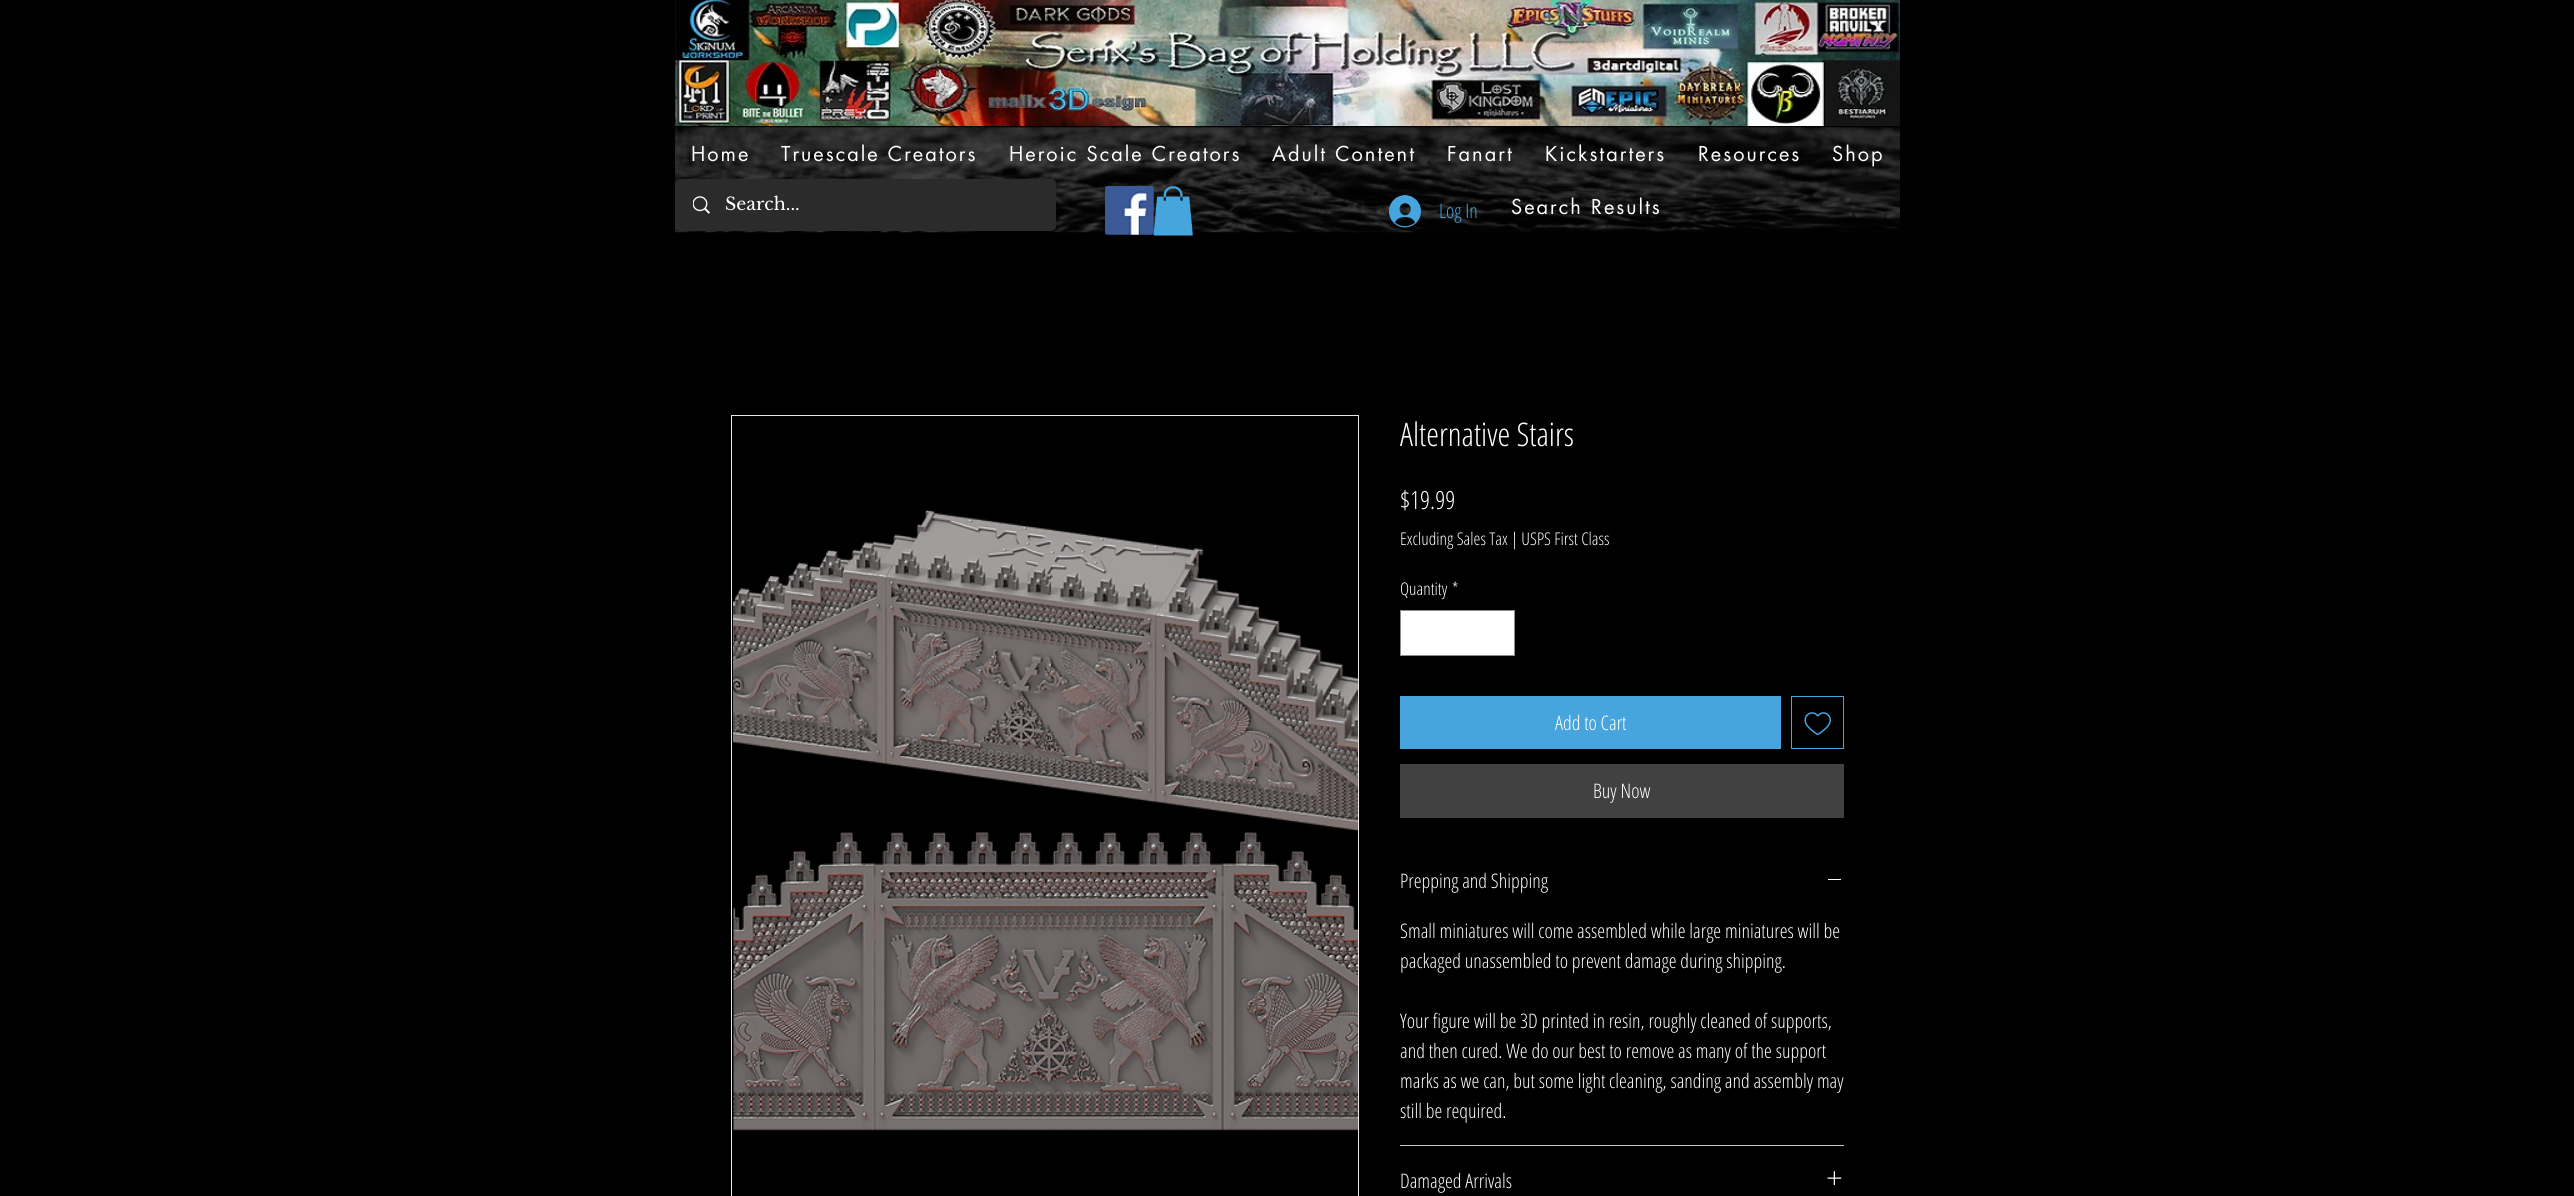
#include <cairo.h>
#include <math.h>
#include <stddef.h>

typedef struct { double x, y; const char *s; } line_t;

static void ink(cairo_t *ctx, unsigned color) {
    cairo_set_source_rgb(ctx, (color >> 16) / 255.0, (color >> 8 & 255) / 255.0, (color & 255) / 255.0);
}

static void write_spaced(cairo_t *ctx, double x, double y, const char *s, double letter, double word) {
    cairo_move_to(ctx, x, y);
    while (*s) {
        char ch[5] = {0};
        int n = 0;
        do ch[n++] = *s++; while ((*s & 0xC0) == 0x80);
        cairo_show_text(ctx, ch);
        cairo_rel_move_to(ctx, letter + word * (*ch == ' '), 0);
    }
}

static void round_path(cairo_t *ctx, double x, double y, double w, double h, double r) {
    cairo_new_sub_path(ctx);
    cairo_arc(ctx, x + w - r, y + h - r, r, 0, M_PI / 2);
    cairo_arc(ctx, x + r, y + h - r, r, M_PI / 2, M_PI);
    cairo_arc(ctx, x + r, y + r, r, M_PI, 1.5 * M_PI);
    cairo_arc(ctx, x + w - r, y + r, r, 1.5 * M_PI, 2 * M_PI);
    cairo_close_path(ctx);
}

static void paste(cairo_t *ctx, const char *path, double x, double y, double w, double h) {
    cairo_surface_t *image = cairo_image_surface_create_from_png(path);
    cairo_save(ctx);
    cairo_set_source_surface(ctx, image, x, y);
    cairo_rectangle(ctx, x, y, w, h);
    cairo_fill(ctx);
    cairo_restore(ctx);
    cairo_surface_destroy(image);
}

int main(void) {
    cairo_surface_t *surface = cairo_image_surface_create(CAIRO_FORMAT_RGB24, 2574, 1196);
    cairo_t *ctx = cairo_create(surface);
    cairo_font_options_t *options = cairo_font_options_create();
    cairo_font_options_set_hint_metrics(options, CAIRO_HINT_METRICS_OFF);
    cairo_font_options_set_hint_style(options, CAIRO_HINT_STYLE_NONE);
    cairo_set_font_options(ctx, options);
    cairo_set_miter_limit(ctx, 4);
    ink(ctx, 0x000000);
    cairo_paint(ctx);
    paste(ctx, "media/1.png", 675, 0, 1225, 126);
    paste(ctx, "media/2.png", 675, 127, 1225, 106);
    cairo_select_font_face(ctx, "futura", CAIRO_FONT_SLANT_NORMAL, CAIRO_FONT_WEIGHT_NORMAL);
    cairo_set_font_size(ctx, 20);
    ink(ctx, 0xFFFFFF);
    {
        static const line_t items[] = {
            {691, 161, "Home"},
            {781, 161, "Truescale Creators"},
            {1009, 161, "Heroic Scale Creators"},
            {1272, 161, "Adult Content"},
            {1447, 161, "Fanart"},
            {1545, 161, "Kickstarters"},
            {1698, 161, "Resources"},
            {1832, 161, "Shop"},
            {1511, 214, "Search Results"},
        };
        for (size_t i = 0; i < sizeof items / sizeof *items; i++) {
            write_spaced(ctx, items[i].x, items[i].y, items[i].s, 2, 0);
        }
    }
    ink(ctx, 0x2B2B2B);
    round_path(ctx, 675, 179, 381, 52, 5);
    cairo_fill(ctx);
    paste(ctx, "media/3.png", 693, 196, 17, 18);
    cairo_select_font_face(ctx, "Libre Baskerville", CAIRO_FONT_SLANT_NORMAL, CAIRO_FONT_WEIGHT_NORMAL);
    cairo_set_font_size(ctx, 17.5);
    ink(ctx, 0xFFFFFF);
    cairo_move_to(ctx, 725, 210);
    cairo_show_text(ctx, "Search...");
    paste(ctx, "media/4.png", 1105, 186, 49, 49);
    paste(ctx, "media/5.png", 1153, 186, 40, 50);
    paste(ctx, "media/6.png", 1389, 195, 32, 33);
    cairo_select_font_face(ctx, "Open Sans Condensed Light", CAIRO_FONT_SLANT_NORMAL, CAIRO_FONT_WEIGHT_NORMAL);
    cairo_set_font_size(ctx, 20);
    ink(ctx, 0x47A5DE);
    cairo_move_to(ctx, 1439, 218);
    cairo_show_text(ctx, "Log In");
    cairo_rectangle(ctx, 731.5, 415.5, 627, 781);
    ink(ctx, 0xE8E6E6);
    cairo_set_line_width(ctx, 1);
    cairo_stroke(ctx);
    paste(ctx, "media/7.png", 733, 509, 625, 622);
    cairo_set_font_size(ctx, 32.5);
    ink(ctx, 0xFFFFFF);
    cairo_move_to(ctx, 1400, 446);
    cairo_show_text(ctx, "Alternative Stairs");
    cairo_set_font_size(ctx, 25);
    cairo_move_to(ctx, 1400, 509);
    cairo_show_text(ctx, "$19.99");
    cairo_set_font_size(ctx, 17.5);
    {
        static const line_t items[] = {
            {1400, 545, "Excluding Sales Tax | USPS First Class"},
            {1400, 595, "Quantity"},
            {1452, 595, "*"},
        };
        for (size_t i = 0; i < sizeof items / sizeof *items; i++) {
            cairo_move_to(ctx, items[i].x, items[i].y);
            cairo_show_text(ctx, items[i].s);
        }
    }
    cairo_rectangle(ctx, 1400.5, 610.5, 114, 45);
    cairo_fill_preserve(ctx);
    ink(ctx, 0x8D8D8D);
    cairo_stroke(ctx);
    ink(ctx, 0x47A5DE);
    cairo_rectangle(ctx, 1400, 696, 381, 53);
    cairo_fill(ctx);
    cairo_set_font_size(ctx, 20);
    ink(ctx, 0xFFFFFF);
    cairo_move_to(ctx, 1555, 730);
    cairo_show_text(ctx, "Add to Cart");
    cairo_rectangle(ctx, 1791.5, 696.5, 52, 52);
    ink(ctx, 0x47A5DE);
    cairo_stroke(ctx);
    paste(ctx, "media/8.png", 1804, 712, 27, 23);
    ink(ctx, 0x414141);
    cairo_rectangle(ctx, 1400, 764, 444, 54);
    cairo_fill(ctx);
    ink(ctx, 0xFFFFFF);
    cairo_move_to(ctx, 1593, 798);
    cairo_show_text(ctx, "Buy Now");
    ink(ctx, 0xC7C7C7);
    cairo_rectangle(ctx, 1400, 1145, 444, 1);
    cairo_fill(ctx);
    ink(ctx, 0xFFFFFF);
    cairo_move_to(ctx, 1400, 888);
    cairo_show_text(ctx, "Prepping and Shipping");
    cairo_rectangle(ctx, 1828, 879, 13, 1);
    cairo_fill(ctx);
    {
        static const line_t items[] = {
            {1400, 938, "Small miniatures will come assembled while large miniatures will be"},
            {1400, 968, "packaged unassembled to prevent damage during shipping."},
            {1400, 1028, "Your figure will be 3D printed in resin, roughly cleaned of supports,"},
            {1400, 1058, "and then cured. We do our best to remove as many of the support"},
            {1400, 1088, "marks as we can, but some light cleaning, sanding and assembly may"},
            {1400, 1118, "still be required."},
            {1400, 1188, "Damaged Arrivals"},
        };
        for (size_t i = 0; i < sizeof items / sizeof *items; i++) {
            cairo_move_to(ctx, items[i].x, items[i].y);
            cairo_show_text(ctx, items[i].s);
        }
    }
    paste(ctx, "media/9.png", 1827, 1171, 15, 14);
    cairo_surface_write_to_png(surface, "image.png");
    cairo_font_options_destroy(options);
    cairo_destroy(ctx);
    cairo_surface_destroy(surface);
    return 0;
}
